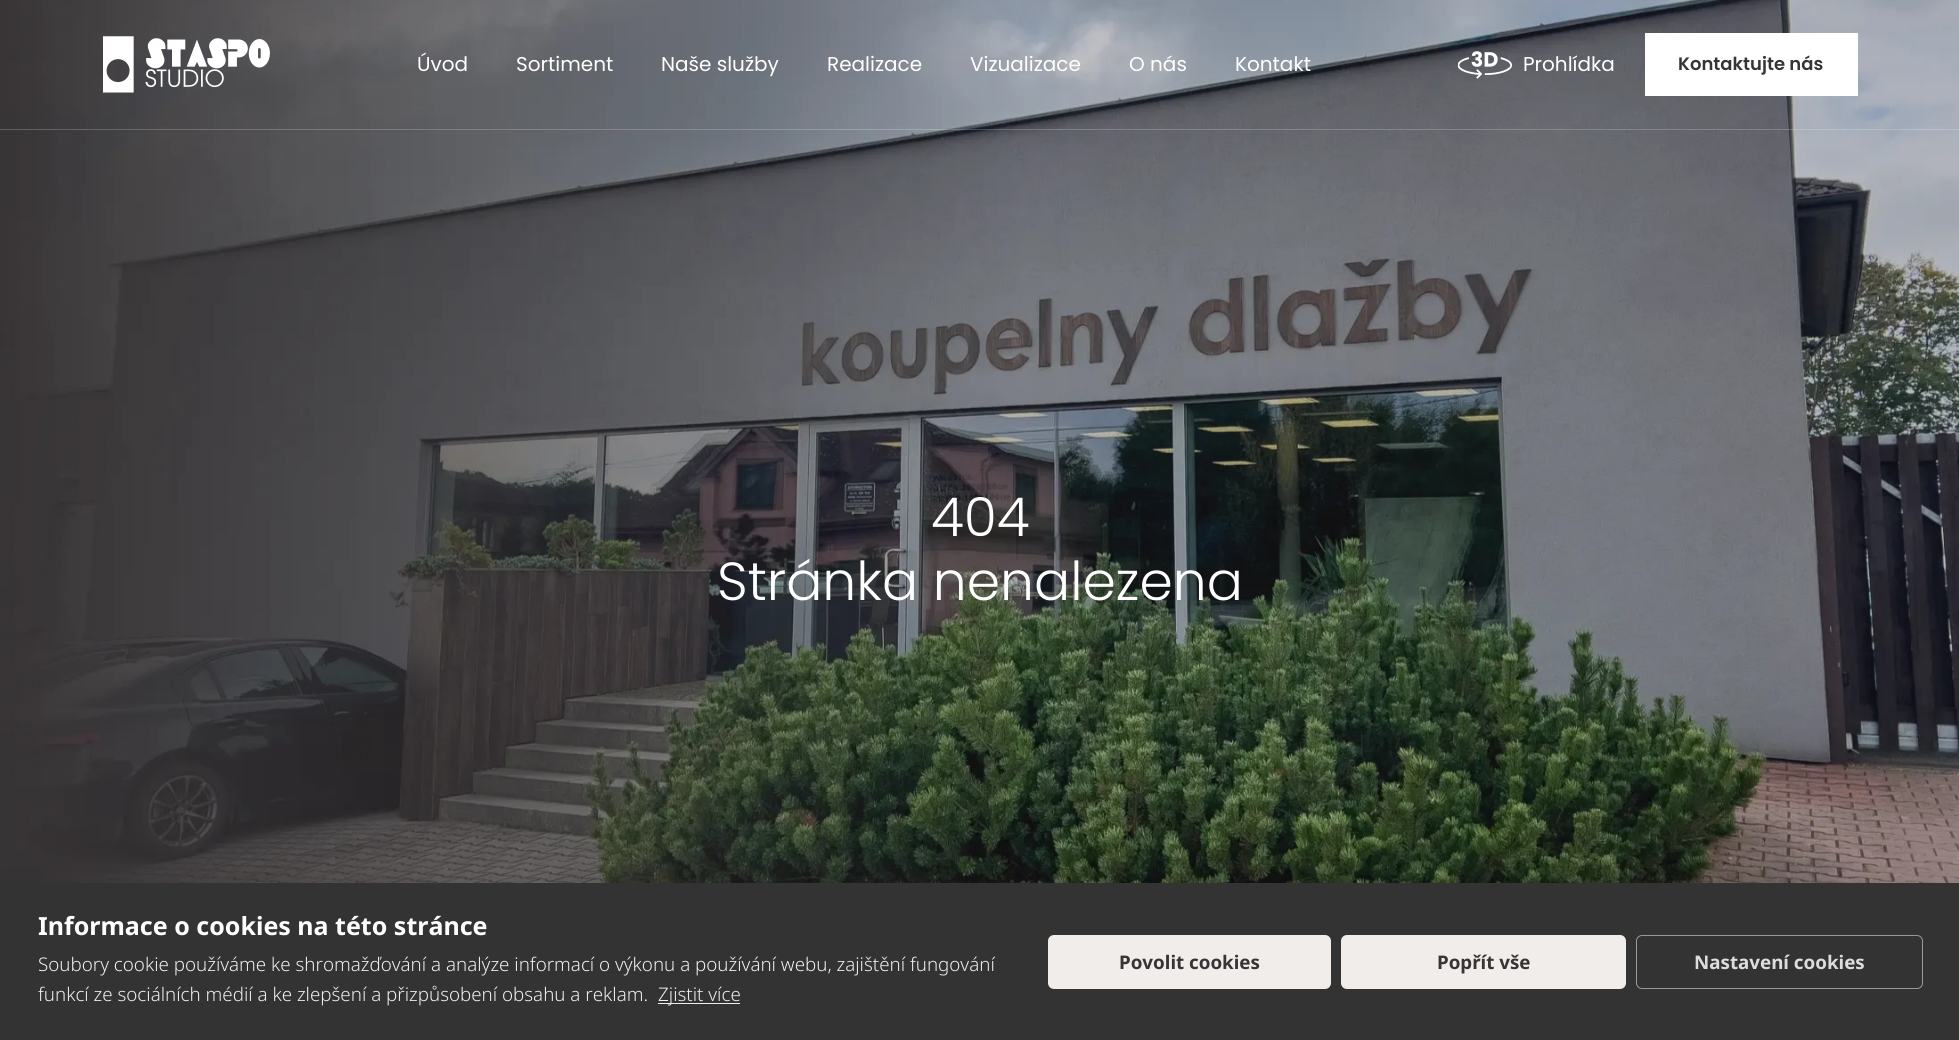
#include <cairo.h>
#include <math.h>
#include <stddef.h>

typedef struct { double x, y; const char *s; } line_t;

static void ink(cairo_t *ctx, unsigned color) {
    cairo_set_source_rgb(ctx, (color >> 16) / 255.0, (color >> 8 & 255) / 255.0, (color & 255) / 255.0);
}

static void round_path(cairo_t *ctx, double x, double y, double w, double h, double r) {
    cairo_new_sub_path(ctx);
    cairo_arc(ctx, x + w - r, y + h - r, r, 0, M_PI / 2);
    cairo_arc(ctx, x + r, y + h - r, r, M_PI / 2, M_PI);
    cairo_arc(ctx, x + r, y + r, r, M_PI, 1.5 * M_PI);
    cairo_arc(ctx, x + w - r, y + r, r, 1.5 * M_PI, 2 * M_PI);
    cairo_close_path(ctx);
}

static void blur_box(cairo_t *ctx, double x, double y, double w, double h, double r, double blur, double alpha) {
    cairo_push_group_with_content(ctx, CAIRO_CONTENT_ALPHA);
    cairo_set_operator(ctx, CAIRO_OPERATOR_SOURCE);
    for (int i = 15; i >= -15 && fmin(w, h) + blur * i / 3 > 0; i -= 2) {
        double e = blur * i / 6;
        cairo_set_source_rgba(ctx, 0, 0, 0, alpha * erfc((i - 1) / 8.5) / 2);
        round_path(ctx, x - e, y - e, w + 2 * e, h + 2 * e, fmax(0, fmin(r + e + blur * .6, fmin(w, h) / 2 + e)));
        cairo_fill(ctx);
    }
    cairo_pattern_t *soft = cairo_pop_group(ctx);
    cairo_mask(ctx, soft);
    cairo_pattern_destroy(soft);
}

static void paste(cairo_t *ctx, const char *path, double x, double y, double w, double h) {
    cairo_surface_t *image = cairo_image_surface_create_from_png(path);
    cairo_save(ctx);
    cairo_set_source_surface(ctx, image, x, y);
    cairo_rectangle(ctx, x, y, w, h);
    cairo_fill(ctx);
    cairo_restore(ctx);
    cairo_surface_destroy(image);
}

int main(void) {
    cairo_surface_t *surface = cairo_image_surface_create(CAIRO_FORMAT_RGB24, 1959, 1040);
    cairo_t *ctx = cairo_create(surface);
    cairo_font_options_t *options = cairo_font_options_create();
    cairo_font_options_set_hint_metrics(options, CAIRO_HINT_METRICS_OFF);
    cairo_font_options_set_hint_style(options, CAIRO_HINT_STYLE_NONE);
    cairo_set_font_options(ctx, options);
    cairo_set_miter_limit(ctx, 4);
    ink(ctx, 0xFFFFFF);
    cairo_paint(ctx);
    paste(ctx, "media/3.png", 0, 0, 1959, 883);
    cairo_set_source_rgba(ctx, 1, 1, 1, 0.2);
    cairo_rectangle(ctx, 0, 129, 1959, 1);
    cairo_fill(ctx);
    paste(ctx, "media/1.png", 103, 36, 167, 57);
    cairo_select_font_face(ctx, "Poppins", CAIRO_FONT_SLANT_NORMAL, CAIRO_FONT_WEIGHT_NORMAL);
    cairo_set_font_size(ctx, 20);
    ink(ctx, 0xFFFFFF);
    {
        static const line_t items[] = {
            {417, 71, "Úvod"},
            {516, 71, "Sortiment"},
            {661, 71, "Naše služby"},
            {827, 71, "Realizace"},
            {970, 71, "Vizualizace"},
            {1129, 71, "O nás"},
            {1235, 71, "Kontakt"},
        };
        for (size_t i = 0; i < sizeof items / sizeof *items; i++) {
            cairo_move_to(ctx, items[i].x, items[i].y);
            cairo_show_text(ctx, items[i].s);
        }
    }
    paste(ctx, "media/2.png", 1458, 51, 55, 28);
    cairo_move_to(ctx, 1523, 71);
    cairo_show_text(ctx, "Prohlídka");
    cairo_rectangle(ctx, 1645, 33, 213, 63);
    cairo_fill(ctx);
    cairo_select_font_face(ctx, "Poppins SemiBold", CAIRO_FONT_SLANT_NORMAL, CAIRO_FONT_WEIGHT_NORMAL);
    cairo_set_font_size(ctx, 18);
    ink(ctx, 0x383435);
    cairo_move_to(ctx, 1678, 70);
    cairo_show_text(ctx, "Kontaktujte nás");
    cairo_select_font_face(ctx, "Poppins Light", CAIRO_FONT_SLANT_NORMAL, CAIRO_FONT_WEIGHT_NORMAL);
    cairo_set_font_size(ctx, 53.6);
    ink(ctx, 0xFFFFFF);
    cairo_move_to(ctx, 931, 536);
    cairo_show_text(ctx, "404");
    cairo_move_to(ctx, 717, 600);
    cairo_show_text(ctx, "Stránka nenalezena");
    ink(ctx, 0x000000);
    blur_box(ctx, 0, 883, 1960, 157, 0, 12.5, 0.1);
    ink(ctx, 0x333333);
    cairo_rectangle(ctx, 0, 883, 1959, 157);
    cairo_fill(ctx);
    cairo_select_font_face(ctx, "Noto Sans", CAIRO_FONT_SLANT_NORMAL, CAIRO_FONT_WEIGHT_BOLD);
    cairo_set_font_size(ctx, 25);
    ink(ctx, 0xFFFFFF);
    cairo_move_to(ctx, 38, 935);
    cairo_show_text(ctx, "Informace o cookies na této stránce");
    cairo_select_font_face(ctx, "Noto Sans Light", CAIRO_FONT_SLANT_NORMAL, CAIRO_FONT_WEIGHT_NORMAL);
    cairo_set_font_size(ctx, 18.75);
    ink(ctx, 0xEEEEEE);
    cairo_move_to(ctx, 38, 971);
    cairo_show_text(ctx, "Soubory cookie používáme ke shromažďování a analýze informací o výkonu a používání webu, zajištění fungování");
    cairo_move_to(ctx, 38, 1001);
    cairo_show_text(ctx, "funkcí ze sociálních médií a ke zlepšení a přizpůsobení obsahu a reklam.");
    cairo_rectangle(ctx, 658, 1003, 82, 1);
    cairo_fill(ctx);
    cairo_move_to(ctx, 658, 1001);
    cairo_show_text(ctx, "Zjistit více");
    ink(ctx, 0xF1EDEA);
    round_path(ctx, 1048, 935, 283, 54, 6);
    cairo_fill(ctx);
    cairo_select_font_face(ctx, "Noto Sans", CAIRO_FONT_SLANT_NORMAL, CAIRO_FONT_WEIGHT_BOLD);
    ink(ctx, 0x383435);
    cairo_move_to(ctx, 1119, 969);
    cairo_show_text(ctx, "Povolit cookies");
    ink(ctx, 0xF1EDEA);
    round_path(ctx, 1341, 935, 285, 54, 6);
    cairo_fill(ctx);
    ink(ctx, 0x383435);
    cairo_move_to(ctx, 1437, 969);
    cairo_show_text(ctx, "Popřít vše");
    round_path(ctx, 1636.5, 935.5, 286, 53, 5.5);
    ink(ctx, 0x999999);
    cairo_set_line_width(ctx, 1);
    cairo_stroke(ctx);
    ink(ctx, 0xDDDDDD);
    cairo_move_to(ctx, 1694, 969);
    cairo_show_text(ctx, "Nastavení cookies");
    cairo_surface_write_to_png(surface, "image.png");
    cairo_font_options_destroy(options);
    cairo_destroy(ctx);
    cairo_surface_destroy(surface);
    return 0;
}
